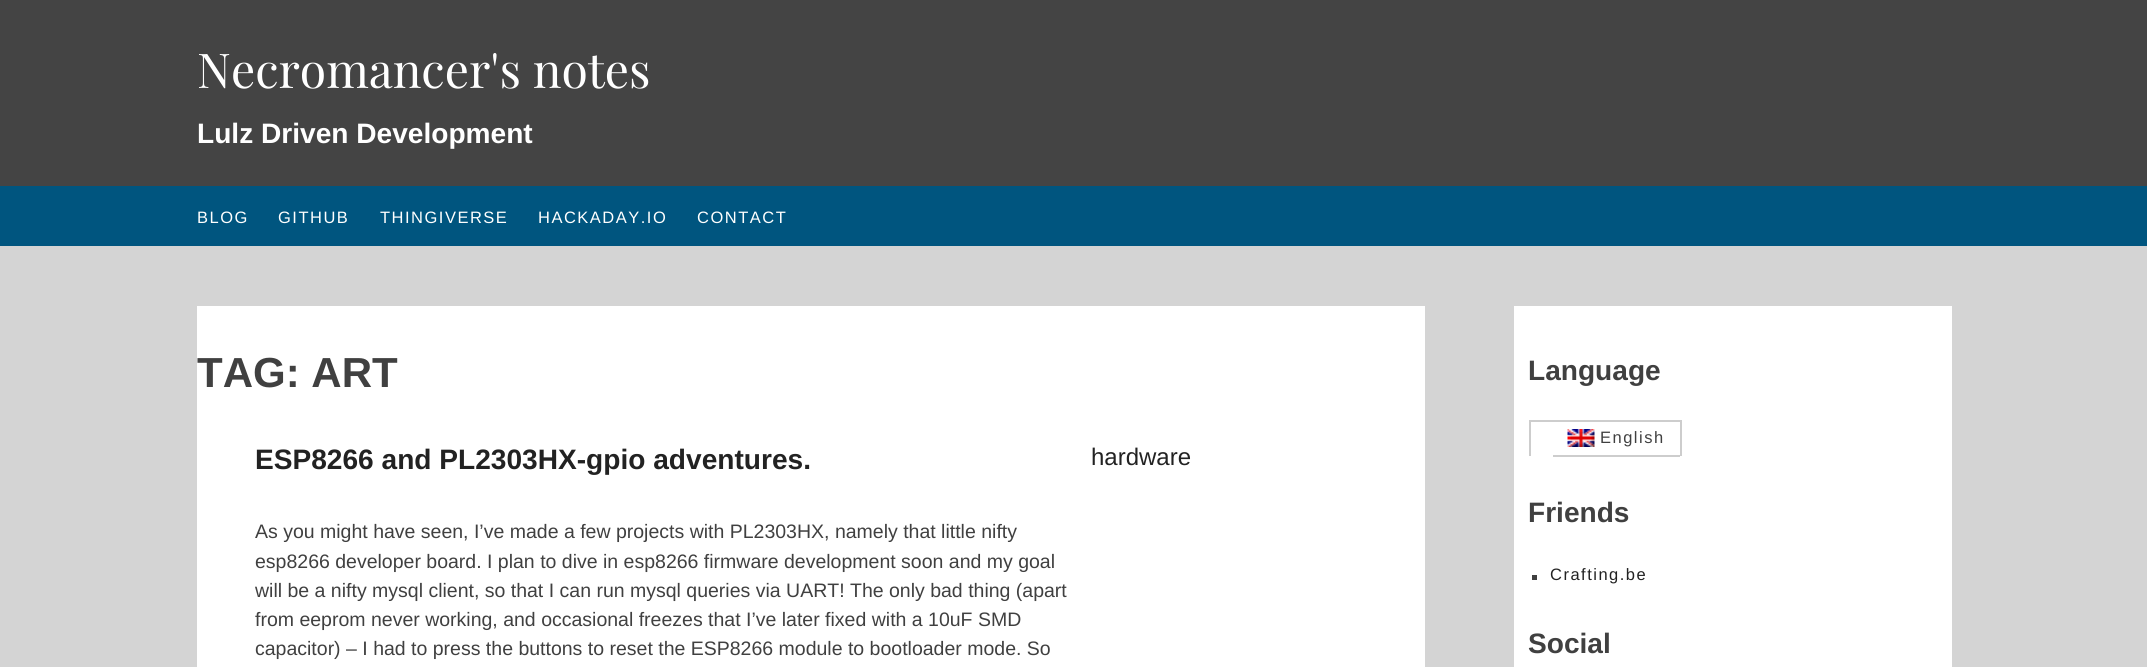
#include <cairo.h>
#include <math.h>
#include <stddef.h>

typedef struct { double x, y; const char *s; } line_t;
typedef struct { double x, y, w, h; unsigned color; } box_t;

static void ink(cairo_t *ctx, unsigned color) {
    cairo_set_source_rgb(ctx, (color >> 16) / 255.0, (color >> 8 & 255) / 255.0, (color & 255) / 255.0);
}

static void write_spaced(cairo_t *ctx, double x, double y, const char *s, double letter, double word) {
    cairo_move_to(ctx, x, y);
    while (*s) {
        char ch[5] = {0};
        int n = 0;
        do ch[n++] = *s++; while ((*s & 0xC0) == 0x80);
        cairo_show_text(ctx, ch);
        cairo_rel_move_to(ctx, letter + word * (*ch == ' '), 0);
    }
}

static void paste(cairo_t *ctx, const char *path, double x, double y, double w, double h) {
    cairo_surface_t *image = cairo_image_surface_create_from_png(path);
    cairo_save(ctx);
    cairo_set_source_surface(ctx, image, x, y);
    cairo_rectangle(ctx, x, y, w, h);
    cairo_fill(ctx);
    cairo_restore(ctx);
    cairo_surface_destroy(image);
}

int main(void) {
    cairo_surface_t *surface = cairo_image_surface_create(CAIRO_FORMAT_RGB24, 2147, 667);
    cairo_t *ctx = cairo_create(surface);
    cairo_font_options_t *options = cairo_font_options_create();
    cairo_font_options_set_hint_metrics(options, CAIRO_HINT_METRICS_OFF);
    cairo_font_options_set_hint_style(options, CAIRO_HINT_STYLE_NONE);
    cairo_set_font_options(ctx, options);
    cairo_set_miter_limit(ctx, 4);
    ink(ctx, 0xD4D4D4);
    cairo_paint(ctx);
    ink(ctx, 0x444444);
    cairo_rectangle(ctx, 0, 0, 2147, 186);
    cairo_fill(ctx);
    cairo_select_font_face(ctx, "Playfair Display", CAIRO_FONT_SLANT_NORMAL, CAIRO_FONT_WEIGHT_NORMAL);
    cairo_set_font_size(ctx, 48);
    ink(ctx, 0xFFFFFF);
    cairo_move_to(ctx, 197, 88);
    cairo_show_text(ctx, "Necromancer's notes");
    cairo_select_font_face(ctx, "Liberation Sans", CAIRO_FONT_SLANT_NORMAL, CAIRO_FONT_WEIGHT_BOLD);
    cairo_set_font_size(ctx, 28.1);
    cairo_move_to(ctx, 197, 143);
    cairo_show_text(ctx, "Lulz Driven Development");
    ink(ctx, 0x00557F);
    cairo_rectangle(ctx, 0, 186, 2147, 60);
    cairo_fill(ctx);
    cairo_select_font_face(ctx, "Liberation Sans", CAIRO_FONT_SLANT_NORMAL, CAIRO_FONT_WEIGHT_NORMAL);
    cairo_set_font_size(ctx, 16.5);
    ink(ctx, 0xFFFFFF);
    {
        static const line_t items[] = {
            {197, 223, "BLOG"},
            {278, 223, "GITHUB"},
            {380, 223, "THINGIVERSE"},
            {538, 223, "HACKADAY.IO"},
            {697, 223, "CONTACT"},
        };
        for (size_t i = 0; i < sizeof items / sizeof *items; i++) {
            write_spaced(ctx, items[i].x, items[i].y, items[i].s, 1.5, 0);
        }
    }
    cairo_rectangle(ctx, 197, 306, 1228, 361);
    cairo_fill(ctx);
    cairo_select_font_face(ctx, "Liberation Sans", CAIRO_FONT_SLANT_NORMAL, CAIRO_FONT_WEIGHT_BOLD);
    cairo_set_font_size(ctx, 42);
    ink(ctx, 0x404040);
    cairo_move_to(ctx, 197, 387);
    cairo_show_text(ctx, "TAG: ART");
    cairo_set_font_size(ctx, 28.1);
    ink(ctx, 0x222222);
    cairo_move_to(ctx, 255, 469);
    cairo_show_text(ctx, "ESP8266 and PL2303HX-gpio adventures.");
    cairo_select_font_face(ctx, "Liberation Sans", CAIRO_FONT_SLANT_NORMAL, CAIRO_FONT_WEIGHT_NORMAL);
    cairo_set_font_size(ctx, 24);
    cairo_move_to(ctx, 1091, 465);
    cairo_show_text(ctx, "hardware");
    cairo_set_font_size(ctx, 19.5);
    ink(ctx, 0x404040);
    {
        static const line_t items[] = {
            {255, 538, "As you might have seen, I’ve made a few projects with PL2303HX, namely that little nifty"},
            {255, 568, "esp8266 developer board. I plan to dive in esp8266 firmware development soon and my goal"},
            {255, 597, "will be a nifty mysql client, so that I can run mysql queries via UART! The only bad thing (apart"},
            {255, 626, "from eeprom never working, and occasional freezes that I’ve later fixed with a 10uF SMD"},
            {255, 655, "capacitor) – I had to press the buttons to reset the ESP8266 module to bootloader mode. So"},
        };
        for (size_t i = 0; i < sizeof items / sizeof *items; i++) {
            cairo_move_to(ctx, items[i].x, items[i].y);
            cairo_show_text(ctx, items[i].s);
        }
    }
    ink(ctx, 0xFFFFFF);
    cairo_rectangle(ctx, 1514, 306, 438, 361);
    cairo_fill(ctx);
    cairo_select_font_face(ctx, "Liberation Sans", CAIRO_FONT_SLANT_NORMAL, CAIRO_FONT_WEIGHT_BOLD);
    cairo_set_font_size(ctx, 28.1);
    ink(ctx, 0x404040);
    cairo_move_to(ctx, 1528, 380);
    cairo_show_text(ctx, "Language");
    {
        static const box_t items[] = {
            {1529, 420, 153, 2, 0xCDCDCD},
            {1680, 420, 2, 36, 0xCDCDCD},
            {1529, 420, 2, 36, 0xCDCDCD},
            {1553, 455, 127, 2, 0xCDCDCD},
        };
        for (size_t i = 0; i < sizeof items / sizeof *items; i++) {
            ink(ctx, items[i].color);
            cairo_rectangle(ctx, items[i].x, items[i].y, items[i].w, items[i].h);
            cairo_fill(ctx);
        }
    }
    paste(ctx, "media/1.png", 1567, 429, 28, 18);
    cairo_select_font_face(ctx, "Liberation Sans", CAIRO_FONT_SLANT_NORMAL, CAIRO_FONT_WEIGHT_NORMAL);
    cairo_set_font_size(ctx, 16.5);
    ink(ctx, 0x404040);
    write_spaced(ctx, 1600, 443, "English", 1.5, 0);
    cairo_select_font_face(ctx, "Liberation Sans", CAIRO_FONT_SLANT_NORMAL, CAIRO_FONT_WEIGHT_BOLD);
    cairo_set_font_size(ctx, 28.1);
    cairo_move_to(ctx, 1528, 522);
    cairo_show_text(ctx, "Friends");
    cairo_rectangle(ctx, 1532, 575, 5, 5);
    cairo_fill(ctx);
    cairo_select_font_face(ctx, "Liberation Sans", CAIRO_FONT_SLANT_NORMAL, CAIRO_FONT_WEIGHT_NORMAL);
    cairo_set_font_size(ctx, 16.5);
    ink(ctx, 0x222222);
    write_spaced(ctx, 1550, 580, "Crafting.be", 1.5, 0);
    cairo_select_font_face(ctx, "Liberation Sans", CAIRO_FONT_SLANT_NORMAL, CAIRO_FONT_WEIGHT_BOLD);
    cairo_set_font_size(ctx, 28.1);
    ink(ctx, 0x404040);
    cairo_move_to(ctx, 1528, 653);
    cairo_show_text(ctx, "Social");
    cairo_surface_write_to_png(surface, "image.png");
    cairo_font_options_destroy(options);
    cairo_destroy(ctx);
    cairo_surface_destroy(surface);
    return 0;
}
